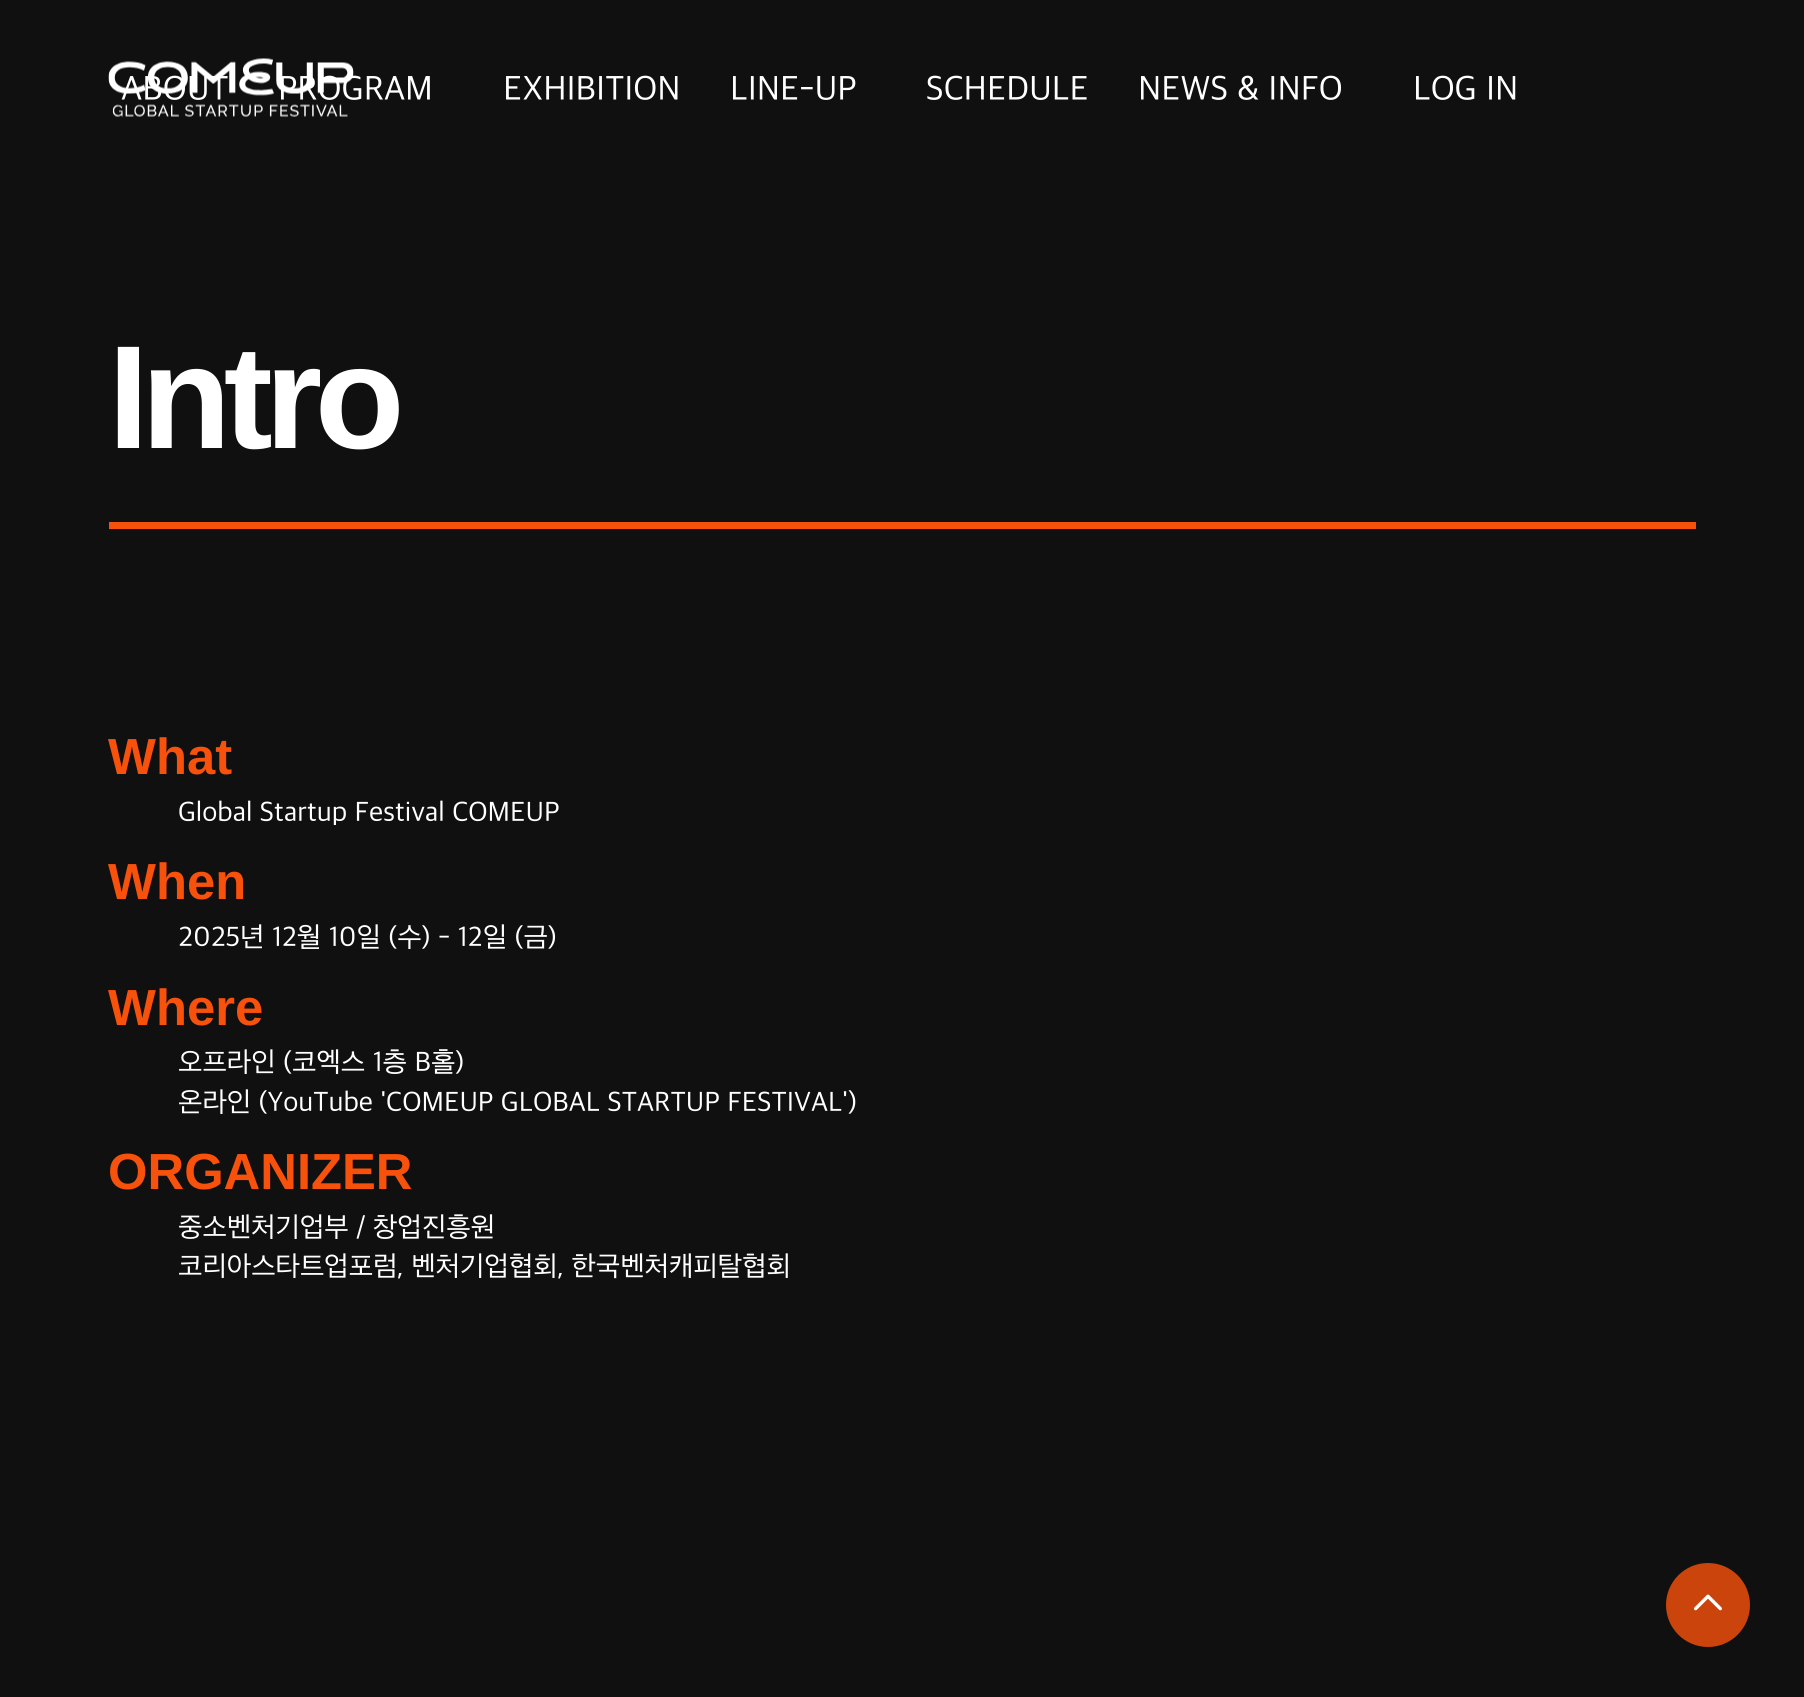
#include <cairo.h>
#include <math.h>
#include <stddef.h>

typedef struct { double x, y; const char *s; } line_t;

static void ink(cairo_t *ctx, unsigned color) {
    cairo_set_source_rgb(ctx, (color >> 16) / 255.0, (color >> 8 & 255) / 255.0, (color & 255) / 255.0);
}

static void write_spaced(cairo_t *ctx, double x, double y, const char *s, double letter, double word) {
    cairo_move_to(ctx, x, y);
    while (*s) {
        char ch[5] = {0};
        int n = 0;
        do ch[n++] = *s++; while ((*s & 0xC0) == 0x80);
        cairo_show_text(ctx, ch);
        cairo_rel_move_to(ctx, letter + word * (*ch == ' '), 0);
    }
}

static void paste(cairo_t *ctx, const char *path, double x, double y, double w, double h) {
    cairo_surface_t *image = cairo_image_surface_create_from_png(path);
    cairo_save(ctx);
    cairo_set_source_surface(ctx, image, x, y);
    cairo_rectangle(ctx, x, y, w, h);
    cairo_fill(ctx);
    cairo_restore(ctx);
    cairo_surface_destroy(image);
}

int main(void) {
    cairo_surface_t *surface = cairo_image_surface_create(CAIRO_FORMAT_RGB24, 1804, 1697);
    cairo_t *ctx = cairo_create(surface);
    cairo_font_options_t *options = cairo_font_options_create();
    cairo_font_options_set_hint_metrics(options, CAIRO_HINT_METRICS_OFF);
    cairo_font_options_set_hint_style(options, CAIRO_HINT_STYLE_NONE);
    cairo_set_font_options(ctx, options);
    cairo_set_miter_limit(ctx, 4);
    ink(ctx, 0x101010);
    cairo_paint(ctx);
    paste(ctx, "media/1.png", 108, 58, 246, 59);
    cairo_select_font_face(ctx, "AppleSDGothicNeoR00", CAIRO_FONT_SLANT_NORMAL, CAIRO_FONT_WEIGHT_NORMAL);
    cairo_set_font_size(ctx, 35);
    ink(ctx, 0xFFFFFF);
    {
        static const line_t items[] = {
            {121, 101, "ABOUT"},
            {278, 101, "PROGRAM"},
            {503, 101, "EXHIBITION"},
            {730, 101, "LINE-UP"},
            {926, 101, "SCHEDULE"},
            {1138, 101, "NEWS & INFO"},
            {1413, 101, "LOG IN"},
        };
        for (size_t i = 0; i < sizeof items / sizeof *items; i++) {
            cairo_move_to(ctx, items[i].x, items[i].y);
            cairo_show_text(ctx, items[i].s);
        }
    }
    cairo_select_font_face(ctx, "Liberation Sans", CAIRO_FONT_SLANT_NORMAL, CAIRO_FONT_WEIGHT_BOLD);
    cairo_set_font_size(ctx, 147);
    write_spaced(ctx, 108, 448, "Intro", -7.5, 0);
    ink(ctx, 0xF8510B);
    cairo_rectangle(ctx, 109, 522, 1587, 7);
    cairo_fill(ctx);
    cairo_set_font_size(ctx, 50.75);
    cairo_move_to(ctx, 108, 774);
    cairo_show_text(ctx, "What");
    cairo_select_font_face(ctx, "AppleSDGothicNeoR00", CAIRO_FONT_SLANT_NORMAL, CAIRO_FONT_WEIGHT_NORMAL);
    cairo_set_font_size(ctx, 28.2);
    ink(ctx, 0xFFFFFF);
    cairo_move_to(ctx, 178, 822);
    cairo_show_text(ctx, "Global Startup Festival COMEUP");
    cairo_select_font_face(ctx, "Liberation Sans", CAIRO_FONT_SLANT_NORMAL, CAIRO_FONT_WEIGHT_BOLD);
    cairo_set_font_size(ctx, 50.75);
    ink(ctx, 0xF8510B);
    cairo_move_to(ctx, 108, 899);
    cairo_show_text(ctx, "When");
    cairo_select_font_face(ctx, "AppleSDGothicNeoR00", CAIRO_FONT_SLANT_NORMAL, CAIRO_FONT_WEIGHT_NORMAL);
    cairo_set_font_size(ctx, 28.2);
    ink(ctx, 0xFFFFFF);
    cairo_move_to(ctx, 178, 947);
    cairo_show_text(ctx, "2025년 12월 10일 (수) - 12일 (금)");
    cairo_select_font_face(ctx, "Liberation Sans", CAIRO_FONT_SLANT_NORMAL, CAIRO_FONT_WEIGHT_BOLD);
    cairo_set_font_size(ctx, 50.75);
    ink(ctx, 0xF8510B);
    cairo_move_to(ctx, 108, 1025);
    cairo_show_text(ctx, "Where");
    cairo_select_font_face(ctx, "AppleSDGothicNeoR00", CAIRO_FONT_SLANT_NORMAL, CAIRO_FONT_WEIGHT_NORMAL);
    cairo_set_font_size(ctx, 28.2);
    ink(ctx, 0xFFFFFF);
    cairo_move_to(ctx, 178, 1072);
    cairo_show_text(ctx, "오프라인 (코엑스 1층 B홀)");
    cairo_move_to(ctx, 178, 1112);
    cairo_show_text(ctx, "온라인 (YouTube 'COMEUP GLOBAL STARTUP FESTIVAL')");
    cairo_select_font_face(ctx, "Liberation Sans", CAIRO_FONT_SLANT_NORMAL, CAIRO_FONT_WEIGHT_BOLD);
    cairo_set_font_size(ctx, 50.75);
    ink(ctx, 0xF8510B);
    cairo_move_to(ctx, 108, 1189);
    cairo_show_text(ctx, "ORGANIZER");
    cairo_select_font_face(ctx, "AppleSDGothicNeoR00", CAIRO_FONT_SLANT_NORMAL, CAIRO_FONT_WEIGHT_NORMAL);
    cairo_set_font_size(ctx, 28.2);
    ink(ctx, 0xFFFFFF);
    cairo_move_to(ctx, 178, 1237);
    cairo_show_text(ctx, "중소벤처기업부 / 창업진흥원");
    cairo_move_to(ctx, 178, 1276);
    cairo_show_text(ctx, "코리아스타트업포럼, 벤처기업협회, 한국벤처캐피탈협회");
    ink(ctx, 0xCA440C);
    cairo_new_path(ctx);
    cairo_arc(ctx, 1708, 1605, 42, 0, 2 * M_PI);
    cairo_fill(ctx);
    paste(ctx, "media/2.png", 1694, 1594, 28, 17);
    cairo_surface_write_to_png(surface, "image.png");
    cairo_font_options_destroy(options);
    cairo_destroy(ctx);
    cairo_surface_destroy(surface);
    return 0;
}
